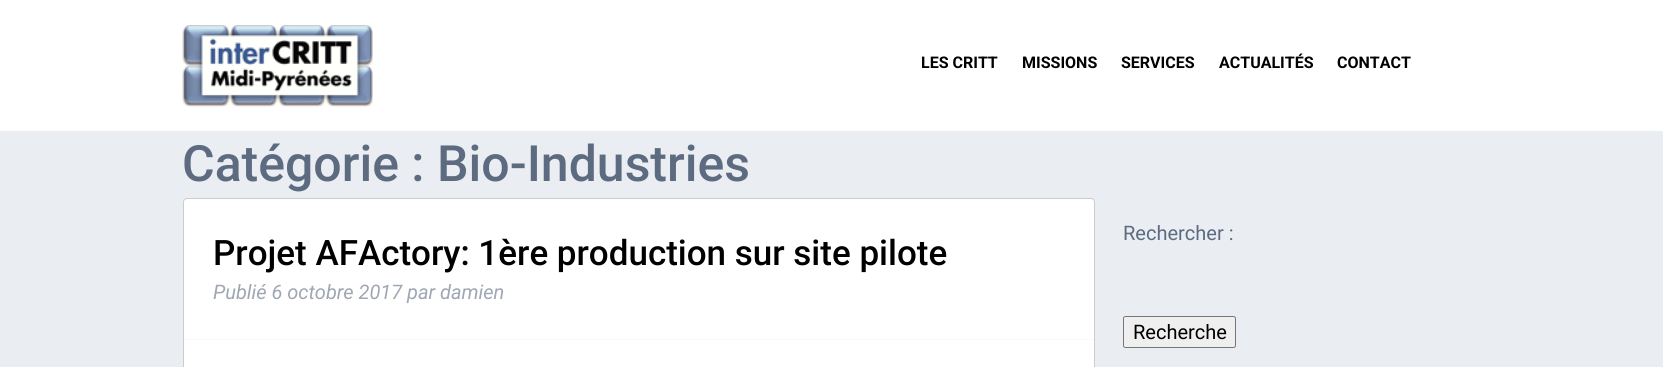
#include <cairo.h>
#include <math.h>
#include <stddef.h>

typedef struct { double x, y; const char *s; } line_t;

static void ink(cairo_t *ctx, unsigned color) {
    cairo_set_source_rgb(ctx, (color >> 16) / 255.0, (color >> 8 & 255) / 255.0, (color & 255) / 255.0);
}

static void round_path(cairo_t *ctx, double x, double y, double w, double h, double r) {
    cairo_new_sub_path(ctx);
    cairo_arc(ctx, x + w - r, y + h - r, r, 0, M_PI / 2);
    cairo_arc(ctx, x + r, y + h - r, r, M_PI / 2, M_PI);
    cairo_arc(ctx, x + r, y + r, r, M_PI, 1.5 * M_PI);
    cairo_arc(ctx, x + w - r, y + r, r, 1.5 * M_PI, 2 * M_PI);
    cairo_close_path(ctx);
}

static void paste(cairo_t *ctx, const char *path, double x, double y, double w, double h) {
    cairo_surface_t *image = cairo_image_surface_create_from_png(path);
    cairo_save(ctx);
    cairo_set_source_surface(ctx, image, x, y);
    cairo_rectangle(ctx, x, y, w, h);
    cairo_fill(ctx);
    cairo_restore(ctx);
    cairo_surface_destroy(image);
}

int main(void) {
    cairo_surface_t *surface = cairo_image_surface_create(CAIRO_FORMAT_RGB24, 1663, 367);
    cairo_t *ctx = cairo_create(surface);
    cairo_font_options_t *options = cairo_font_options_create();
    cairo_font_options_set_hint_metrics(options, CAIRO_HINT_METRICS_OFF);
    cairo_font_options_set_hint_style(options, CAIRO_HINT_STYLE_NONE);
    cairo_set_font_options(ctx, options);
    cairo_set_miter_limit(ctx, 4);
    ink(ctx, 0xEAEDF2);
    cairo_paint(ctx);
    ink(ctx, 0xFFFFFF);
    cairo_rectangle(ctx, 0, 0, 1663, 131);
    cairo_fill(ctx);
    paste(ctx, "media/1.png", 182, 25, 191, 82);
    cairo_select_font_face(ctx, "Roboto", CAIRO_FONT_SLANT_NORMAL, CAIRO_FONT_WEIGHT_BOLD);
    cairo_set_font_size(ctx, 16);
    ink(ctx, 0x000000);
    {
        static const line_t items[] = {
            {921, 68, "LES CRITT"},
            {1022, 68, "MISSIONS"},
            {1121, 68, "SERVICES"},
            {1219, 68, "ACTUALITÉS"},
            {1337, 68, "CONTACT"},
        };
        for (size_t i = 0; i < sizeof items / sizeof *items; i++) {
            cairo_move_to(ctx, items[i].x, items[i].y);
            cairo_show_text(ctx, items[i].s);
        }
    }
    cairo_select_font_face(ctx, "Roboto Medium", CAIRO_FONT_SLANT_NORMAL, CAIRO_FONT_WEIGHT_NORMAL);
    cairo_set_font_size(ctx, 50);
    ink(ctx, 0x5C6B80);
    cairo_move_to(ctx, 182, 181);
    cairo_show_text(ctx, "Catégorie : Bio-Industries");
    ink(ctx, 0xFFFFFF);
    round_path(ctx, 183.5, 198.5, 911, 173, 3.5);
    cairo_fill_preserve(ctx);
    ink(ctx, 0xCCCCCC);
    cairo_set_line_width(ctx, 1);
    cairo_stroke(ctx);
    ink(ctx, 0xF8F9FA);
    cairo_rectangle(ctx, 184, 339, 910, 1);
    cairo_fill(ctx);
    cairo_set_font_size(ctx, 35);
    ink(ctx, 0x000000);
    cairo_move_to(ctx, 213, 265);
    cairo_show_text(ctx, "Projet AFActory: 1ère production sur site pilote");
    cairo_select_font_face(ctx, "Roboto", CAIRO_FONT_SLANT_ITALIC, CAIRO_FONT_WEIGHT_NORMAL);
    cairo_set_font_size(ctx, 20);
    ink(ctx, 0x9FA6B4);
    cairo_move_to(ctx, 213, 299);
    cairo_show_text(ctx, "Publié 6 octobre 2017 par damien");
    cairo_select_font_face(ctx, "Roboto", CAIRO_FONT_SLANT_NORMAL, CAIRO_FONT_WEIGHT_NORMAL);
    ink(ctx, 0x5C6B80);
    cairo_move_to(ctx, 1123, 240);
    cairo_show_text(ctx, "Rechercher :");
    ink(ctx, 0xEFEFEF);
    round_path(ctx, 1123.5, 316.5, 112, 31, 2);
    cairo_fill_preserve(ctx);
    ink(ctx, 0x767676);
    cairo_stroke(ctx);
    ink(ctx, 0x000000);
    cairo_move_to(ctx, 1133, 339);
    cairo_show_text(ctx, "Recherche");
    cairo_surface_write_to_png(surface, "image.png");
    cairo_font_options_destroy(options);
    cairo_destroy(ctx);
    cairo_surface_destroy(surface);
    return 0;
}
